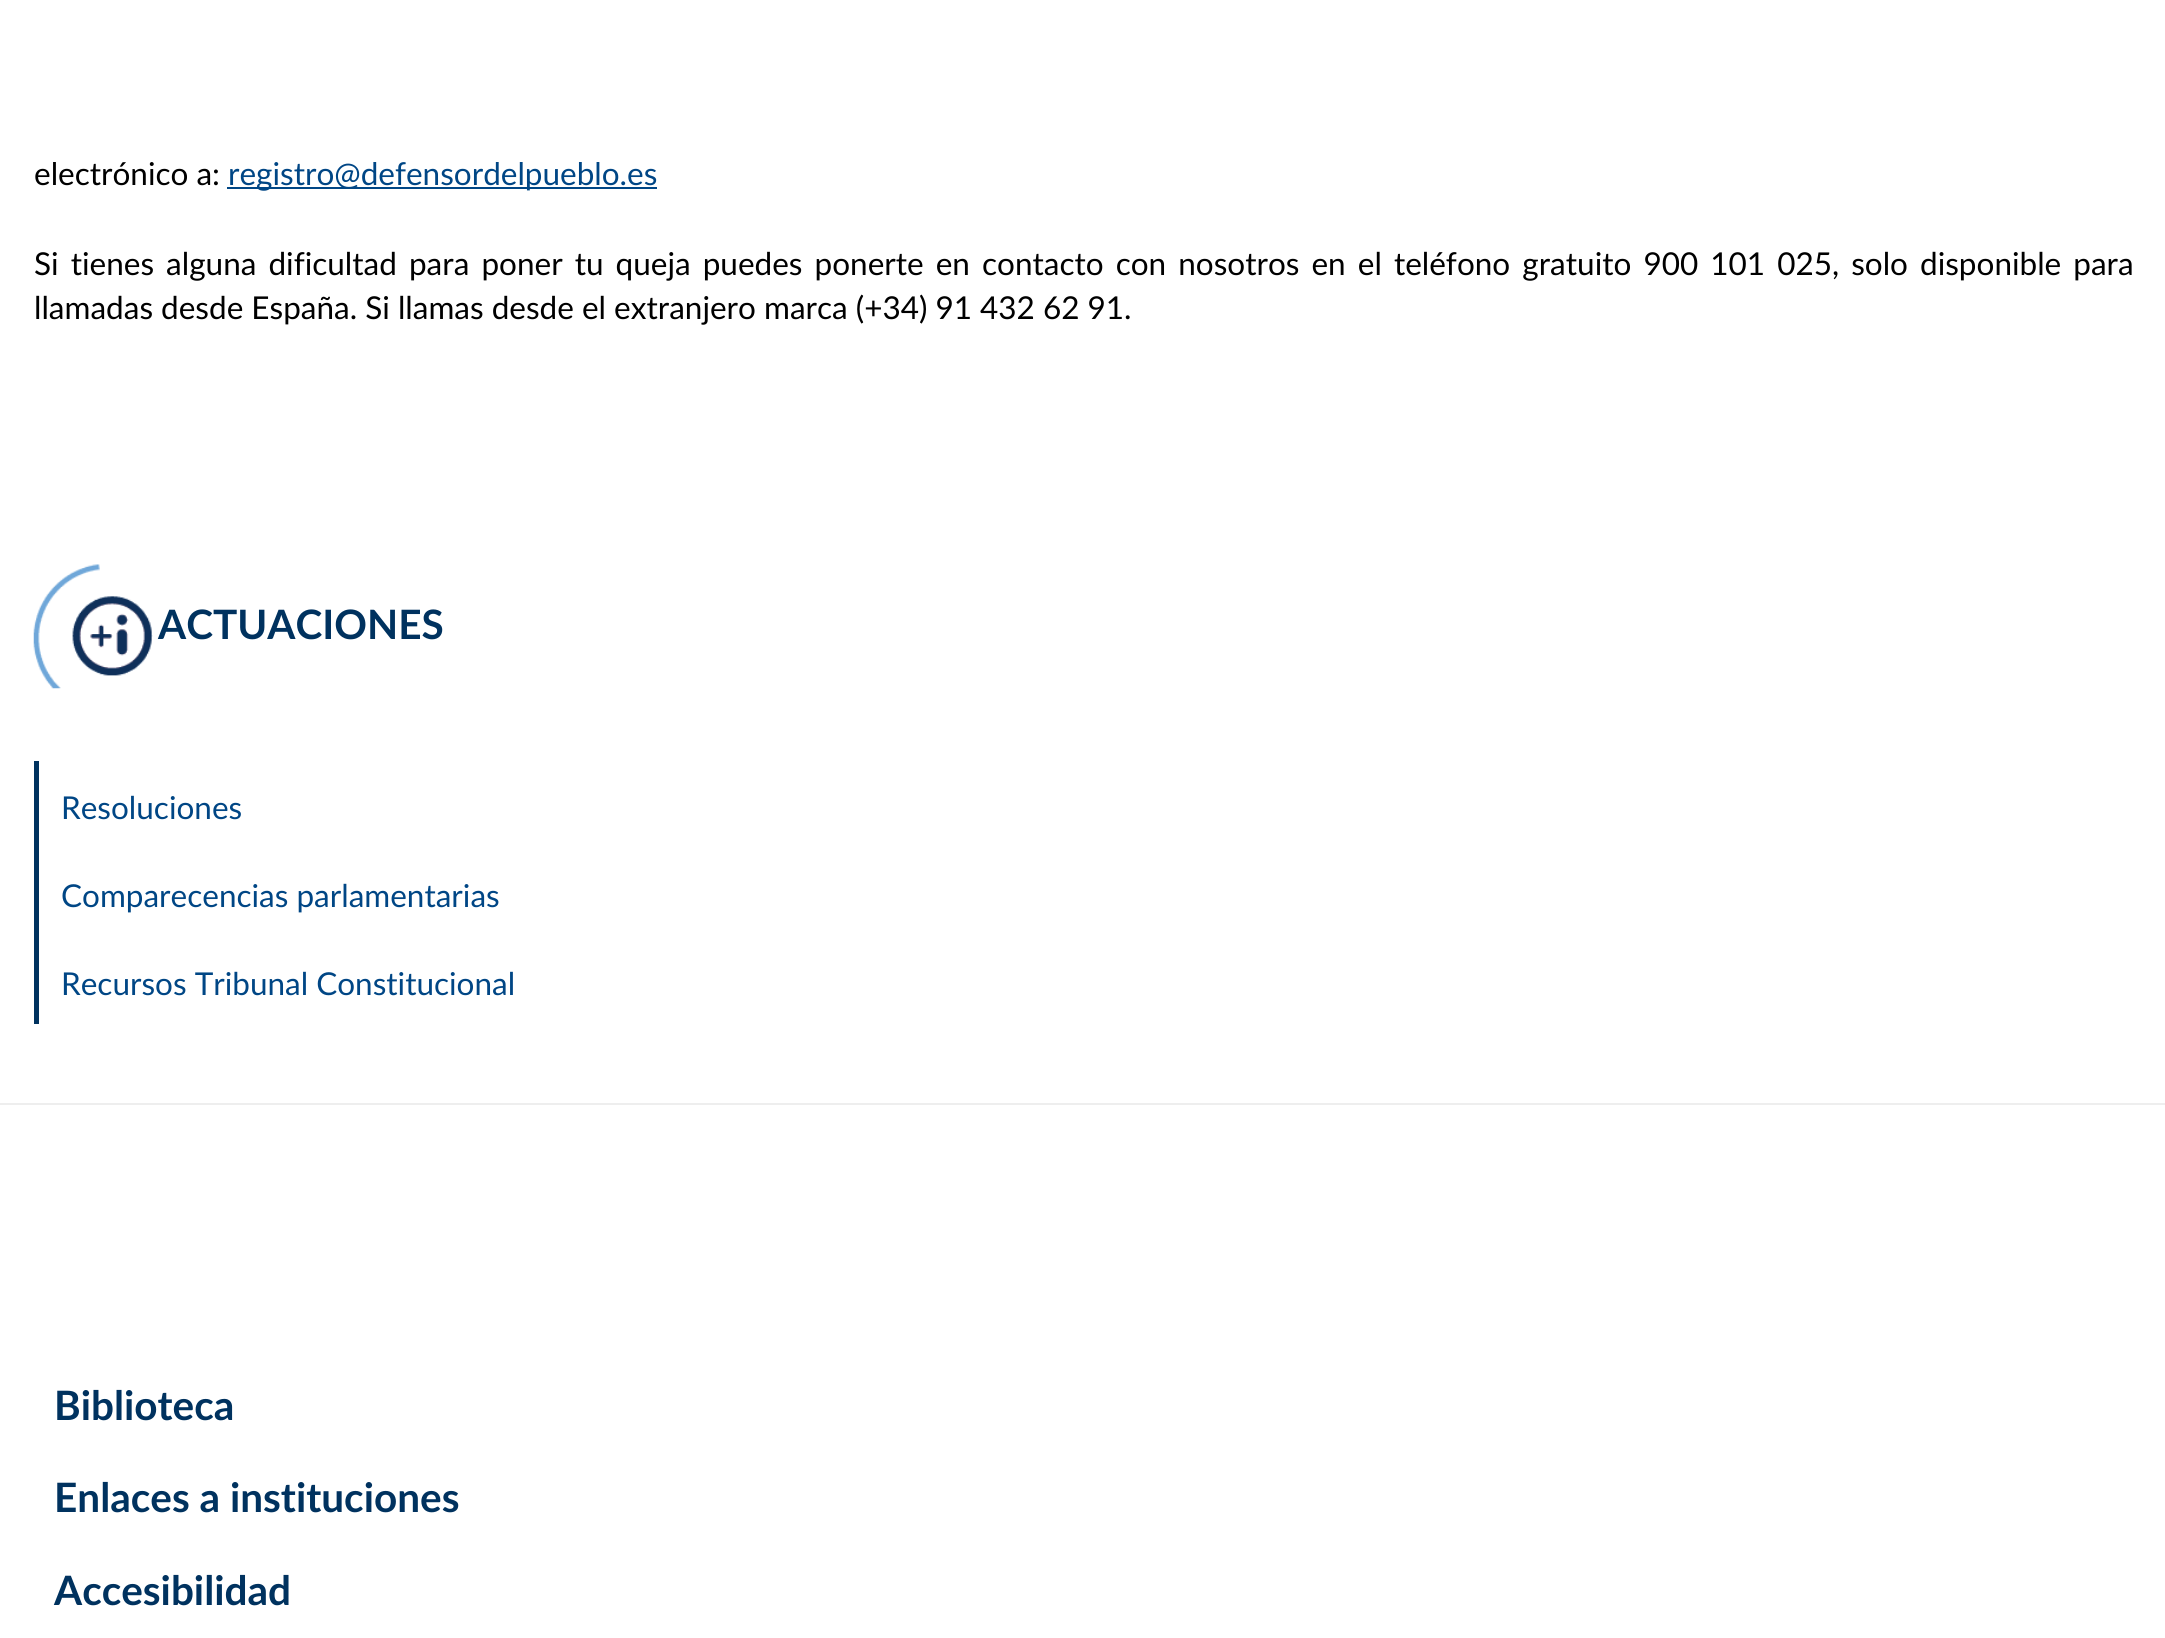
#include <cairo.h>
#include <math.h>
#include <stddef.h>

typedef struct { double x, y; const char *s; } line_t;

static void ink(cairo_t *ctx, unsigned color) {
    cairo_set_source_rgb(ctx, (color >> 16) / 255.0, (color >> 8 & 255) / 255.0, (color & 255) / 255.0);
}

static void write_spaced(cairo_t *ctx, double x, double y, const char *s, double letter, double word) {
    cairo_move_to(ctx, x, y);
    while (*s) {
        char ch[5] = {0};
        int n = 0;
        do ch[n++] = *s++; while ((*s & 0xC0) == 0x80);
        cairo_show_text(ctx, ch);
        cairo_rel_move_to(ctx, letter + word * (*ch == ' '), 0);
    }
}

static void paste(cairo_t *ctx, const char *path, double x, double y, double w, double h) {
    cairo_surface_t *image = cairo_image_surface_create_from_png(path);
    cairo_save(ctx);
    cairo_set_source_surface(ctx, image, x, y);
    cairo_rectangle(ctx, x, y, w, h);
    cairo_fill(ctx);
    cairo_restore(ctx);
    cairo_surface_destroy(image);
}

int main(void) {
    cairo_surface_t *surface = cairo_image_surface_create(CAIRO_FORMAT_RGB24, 2165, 1638);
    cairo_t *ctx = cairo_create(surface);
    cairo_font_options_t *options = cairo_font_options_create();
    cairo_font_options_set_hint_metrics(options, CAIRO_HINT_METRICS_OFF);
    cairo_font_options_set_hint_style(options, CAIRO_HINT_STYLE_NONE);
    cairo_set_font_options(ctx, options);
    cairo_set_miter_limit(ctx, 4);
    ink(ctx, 0xFFFFFF);
    cairo_paint(ctx);
    cairo_select_font_face(ctx, "Lato", CAIRO_FONT_SLANT_NORMAL, CAIRO_FONT_WEIGHT_NORMAL);
    cairo_set_font_size(ctx, 31.5);
    ink(ctx, 0x000000);
    cairo_move_to(ctx, 34, 185);
    cairo_show_text(ctx, "electrónico a:");
    ink(ctx, 0x004685);
    cairo_rectangle(ctx, 227, 187, 430, 2);
    cairo_fill(ctx);
    cairo_move_to(ctx, 228, 185);
    cairo_show_text(ctx, "registro@defensordelpueblo.es");
    ink(ctx, 0x000000);
    write_spaced(ctx, 34, 275, "Si tienes alguna dificultad para poner tu queja puedes ponerte en contacto con nosotros en el teléfono gratuito 900 101 025, solo disponible para", 0, 4);
    cairo_move_to(ctx, 34, 319);
    cairo_show_text(ctx, "llamadas desde España. Si llamas desde el extranjero marca (+34) 91 432 62 91.");
    paste(ctx, "media/1.png", 33, 564, 120, 125);
    cairo_select_font_face(ctx, "Lato", CAIRO_FONT_SLANT_NORMAL, CAIRO_FONT_WEIGHT_BOLD);
    cairo_set_font_size(ctx, 40.5);
    ink(ctx, 0x00325F);
    cairo_move_to(ctx, 158, 639);
    cairo_show_text(ctx, "ACTUACIONES");
    cairo_rectangle(ctx, 34, 761, 5, 263);
    cairo_fill(ctx);
    cairo_select_font_face(ctx, "Lato", CAIRO_FONT_SLANT_NORMAL, CAIRO_FONT_WEIGHT_NORMAL);
    cairo_set_font_size(ctx, 31.5);
    ink(ctx, 0x004685);
    {
        static const line_t items[] = {
            {61, 819, "Resoluciones"},
            {61, 907, "Comparecencias parlamentarias"},
            {61, 995, "Recursos Tribunal Constitucional"},
        };
        for (size_t i = 0; i < sizeof items / sizeof *items; i++) {
            cairo_move_to(ctx, items[i].x, items[i].y);
            cairo_show_text(ctx, items[i].s);
        }
    }
    ink(ctx, 0xEEEEEE);
    cairo_rectangle(ctx, 0, 1103, 2165, 2);
    cairo_fill(ctx);
    ink(ctx, 0xFFFFFF);
    cairo_rectangle(ctx, 52, 161, 548, 1);
    cairo_fill(ctx);
    cairo_select_font_face(ctx, "Lato", CAIRO_FONT_SLANT_NORMAL, CAIRO_FONT_WEIGHT_BOLD);
    cairo_set_font_size(ctx, 40.5);
    ink(ctx, 0x00325F);
    {
        static const line_t items[] = {
            {54, 1420, "Biblioteca"},
            {54, 1512, "Enlaces a instituciones"},
            {54, 1605, "Accesibilidad"},
        };
        for (size_t i = 0; i < sizeof items / sizeof *items; i++) {
            cairo_move_to(ctx, items[i].x, items[i].y);
            cairo_show_text(ctx, items[i].s);
        }
    }
    cairo_surface_write_to_png(surface, "image.png");
    cairo_font_options_destroy(options);
    cairo_destroy(ctx);
    cairo_surface_destroy(surface);
    return 0;
}
